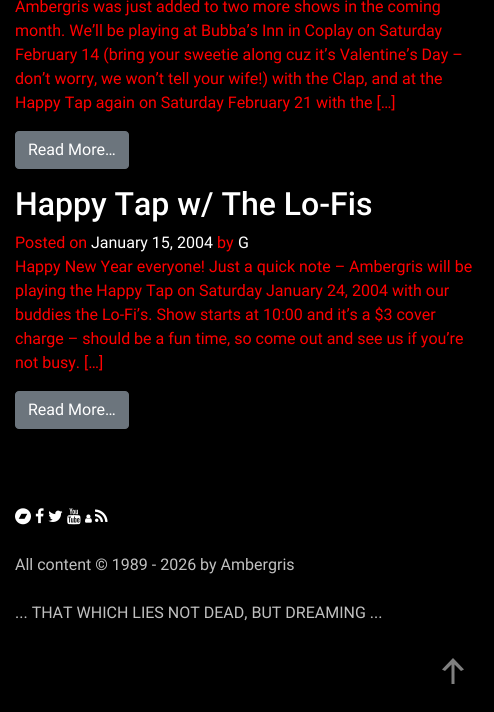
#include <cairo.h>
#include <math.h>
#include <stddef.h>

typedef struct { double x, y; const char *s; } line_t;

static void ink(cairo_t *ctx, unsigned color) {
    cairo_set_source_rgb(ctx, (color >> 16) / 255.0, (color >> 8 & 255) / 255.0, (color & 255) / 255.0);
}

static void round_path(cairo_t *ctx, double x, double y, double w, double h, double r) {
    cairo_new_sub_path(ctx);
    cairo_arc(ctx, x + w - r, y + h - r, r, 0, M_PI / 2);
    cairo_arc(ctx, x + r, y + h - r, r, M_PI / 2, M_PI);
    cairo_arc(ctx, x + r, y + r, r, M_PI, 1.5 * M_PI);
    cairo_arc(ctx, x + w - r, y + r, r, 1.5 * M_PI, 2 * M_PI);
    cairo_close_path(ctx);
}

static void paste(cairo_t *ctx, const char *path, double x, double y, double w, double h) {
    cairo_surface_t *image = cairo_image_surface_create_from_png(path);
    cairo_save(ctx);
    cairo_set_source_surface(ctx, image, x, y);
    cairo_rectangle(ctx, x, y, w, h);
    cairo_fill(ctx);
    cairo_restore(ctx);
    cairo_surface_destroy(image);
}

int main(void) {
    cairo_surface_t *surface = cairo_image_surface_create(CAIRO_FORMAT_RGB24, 494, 712);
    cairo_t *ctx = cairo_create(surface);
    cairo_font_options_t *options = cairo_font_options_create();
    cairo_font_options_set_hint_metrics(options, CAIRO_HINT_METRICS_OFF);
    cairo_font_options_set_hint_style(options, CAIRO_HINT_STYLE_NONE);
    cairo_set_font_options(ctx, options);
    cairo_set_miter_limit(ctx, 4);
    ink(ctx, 0x000000);
    cairo_paint(ctx);
    cairo_select_font_face(ctx, "Roboto", CAIRO_FONT_SLANT_NORMAL, CAIRO_FONT_WEIGHT_NORMAL);
    cairo_set_font_size(ctx, 16);
    ink(ctx, 0xFF0000);
    {
        static const line_t items[] = {
            {15, 12, "Ambergris was just added to two more shows in the coming"},
            {15, 36, "month. We’ll be playing at Bubba’s Inn in Coplay on Saturday"},
            {15, 60, "February 14 (bring your sweetie along cuz it’s Valentine’s Day –"},
            {15, 84, "don’t worry, we won’t tell your wife!) with the Clap, and at the"},
            {15, 108, "Happy Tap again on Saturday February 21 with the […]"},
        };
        for (size_t i = 0; i < sizeof items / sizeof *items; i++) {
            cairo_move_to(ctx, items[i].x, items[i].y);
            cairo_show_text(ctx, items[i].s);
        }
    }
    ink(ctx, 0x6C757D);
    round_path(ctx, 15.5, 131.5, 113, 37, 3.5);
    cairo_fill_preserve(ctx);
    cairo_set_line_width(ctx, 1);
    cairo_stroke(ctx);
    ink(ctx, 0xFFFFFF);
    cairo_move_to(ctx, 28, 155);
    cairo_show_text(ctx, "Read More…");
    cairo_select_font_face(ctx, "Roboto Medium", CAIRO_FONT_SLANT_NORMAL, CAIRO_FONT_WEIGHT_NORMAL);
    cairo_set_font_size(ctx, 32);
    cairo_move_to(ctx, 15, 215);
    cairo_show_text(ctx, "Happy Tap w/ The Lo-Fis");
    cairo_select_font_face(ctx, "Roboto", CAIRO_FONT_SLANT_NORMAL, CAIRO_FONT_WEIGHT_NORMAL);
    cairo_set_font_size(ctx, 16);
    ink(ctx, 0xFF0000);
    cairo_move_to(ctx, 15, 248);
    cairo_show_text(ctx, "Posted on");
    ink(ctx, 0xFFFFFF);
    cairo_move_to(ctx, 91, 248);
    cairo_show_text(ctx, "January 15, 2004");
    ink(ctx, 0xFF0000);
    cairo_move_to(ctx, 217, 248);
    cairo_show_text(ctx, "by");
    ink(ctx, 0xFFFFFF);
    cairo_move_to(ctx, 238, 248);
    cairo_show_text(ctx, "G");
    ink(ctx, 0xFF0000);
    {
        static const line_t items[] = {
            {15, 272, "Happy New Year everyone! Just a quick note – Ambergris will be"},
            {15, 296, "playing the Happy Tap on Saturday January 24, 2004 with our"},
            {15, 320, "buddies the Lo-Fi’s. Show starts at 10:00 and it’s a $3 cover"},
            {15, 344, "charge – should be a fun time, so come out and see us if you’re"},
            {15, 368, "not busy. […]"},
        };
        for (size_t i = 0; i < sizeof items / sizeof *items; i++) {
            cairo_move_to(ctx, items[i].x, items[i].y);
            cairo_show_text(ctx, items[i].s);
        }
    }
    ink(ctx, 0x6C757D);
    round_path(ctx, 15.5, 391.5, 113, 37, 3.5);
    cairo_fill_preserve(ctx);
    cairo_stroke(ctx);
    ink(ctx, 0xFFFFFF);
    cairo_move_to(ctx, 28, 415);
    cairo_show_text(ctx, "Read More…");
    paste(ctx, "media/1.png", 15, 508, 16, 17);
    paste(ctx, "media/2.png", 35, 508, 9, 16);
    paste(ctx, "media/3.png", 48, 510, 15, 12);
    paste(ctx, "media/4.png", 67, 508, 14, 17);
    paste(ctx, "media/5.png", 85, 514, 7, 9);
    paste(ctx, "media/6.png", 95, 509, 13, 13);
    ink(ctx, 0xC0C0C0);
    cairo_move_to(ctx, 15, 570);
    cairo_show_text(ctx, "All content © 1989 - 2026 by Ambergris");
    cairo_move_to(ctx, 15, 618);
    cairo_show_text(ctx, "... THAT WHICH LIES NOT DEAD, BUT DREAMING ...");
    ink(ctx, 0x808080);
    cairo_new_path(ctx);
    cairo_move_to(ctx, 454.5, 684);
    cairo_line_to(ctx, 451.5, 684);
    cairo_line_to(ctx, 451.5, 664.5);
    cairo_line_to(ctx, 445, 671);
    cairo_line_to(ctx, 442, 669.5);
    cairo_line_to(ctx, 453, 658);
    cairo_line_to(ctx, 464, 669.5);
    cairo_line_to(ctx, 461, 671);
    cairo_line_to(ctx, 454.5, 664.5);
    cairo_close_path(ctx);
    cairo_fill(ctx);
    cairo_surface_write_to_png(surface, "image.png");
    cairo_font_options_destroy(options);
    cairo_destroy(ctx);
    cairo_surface_destroy(surface);
    return 0;
}
